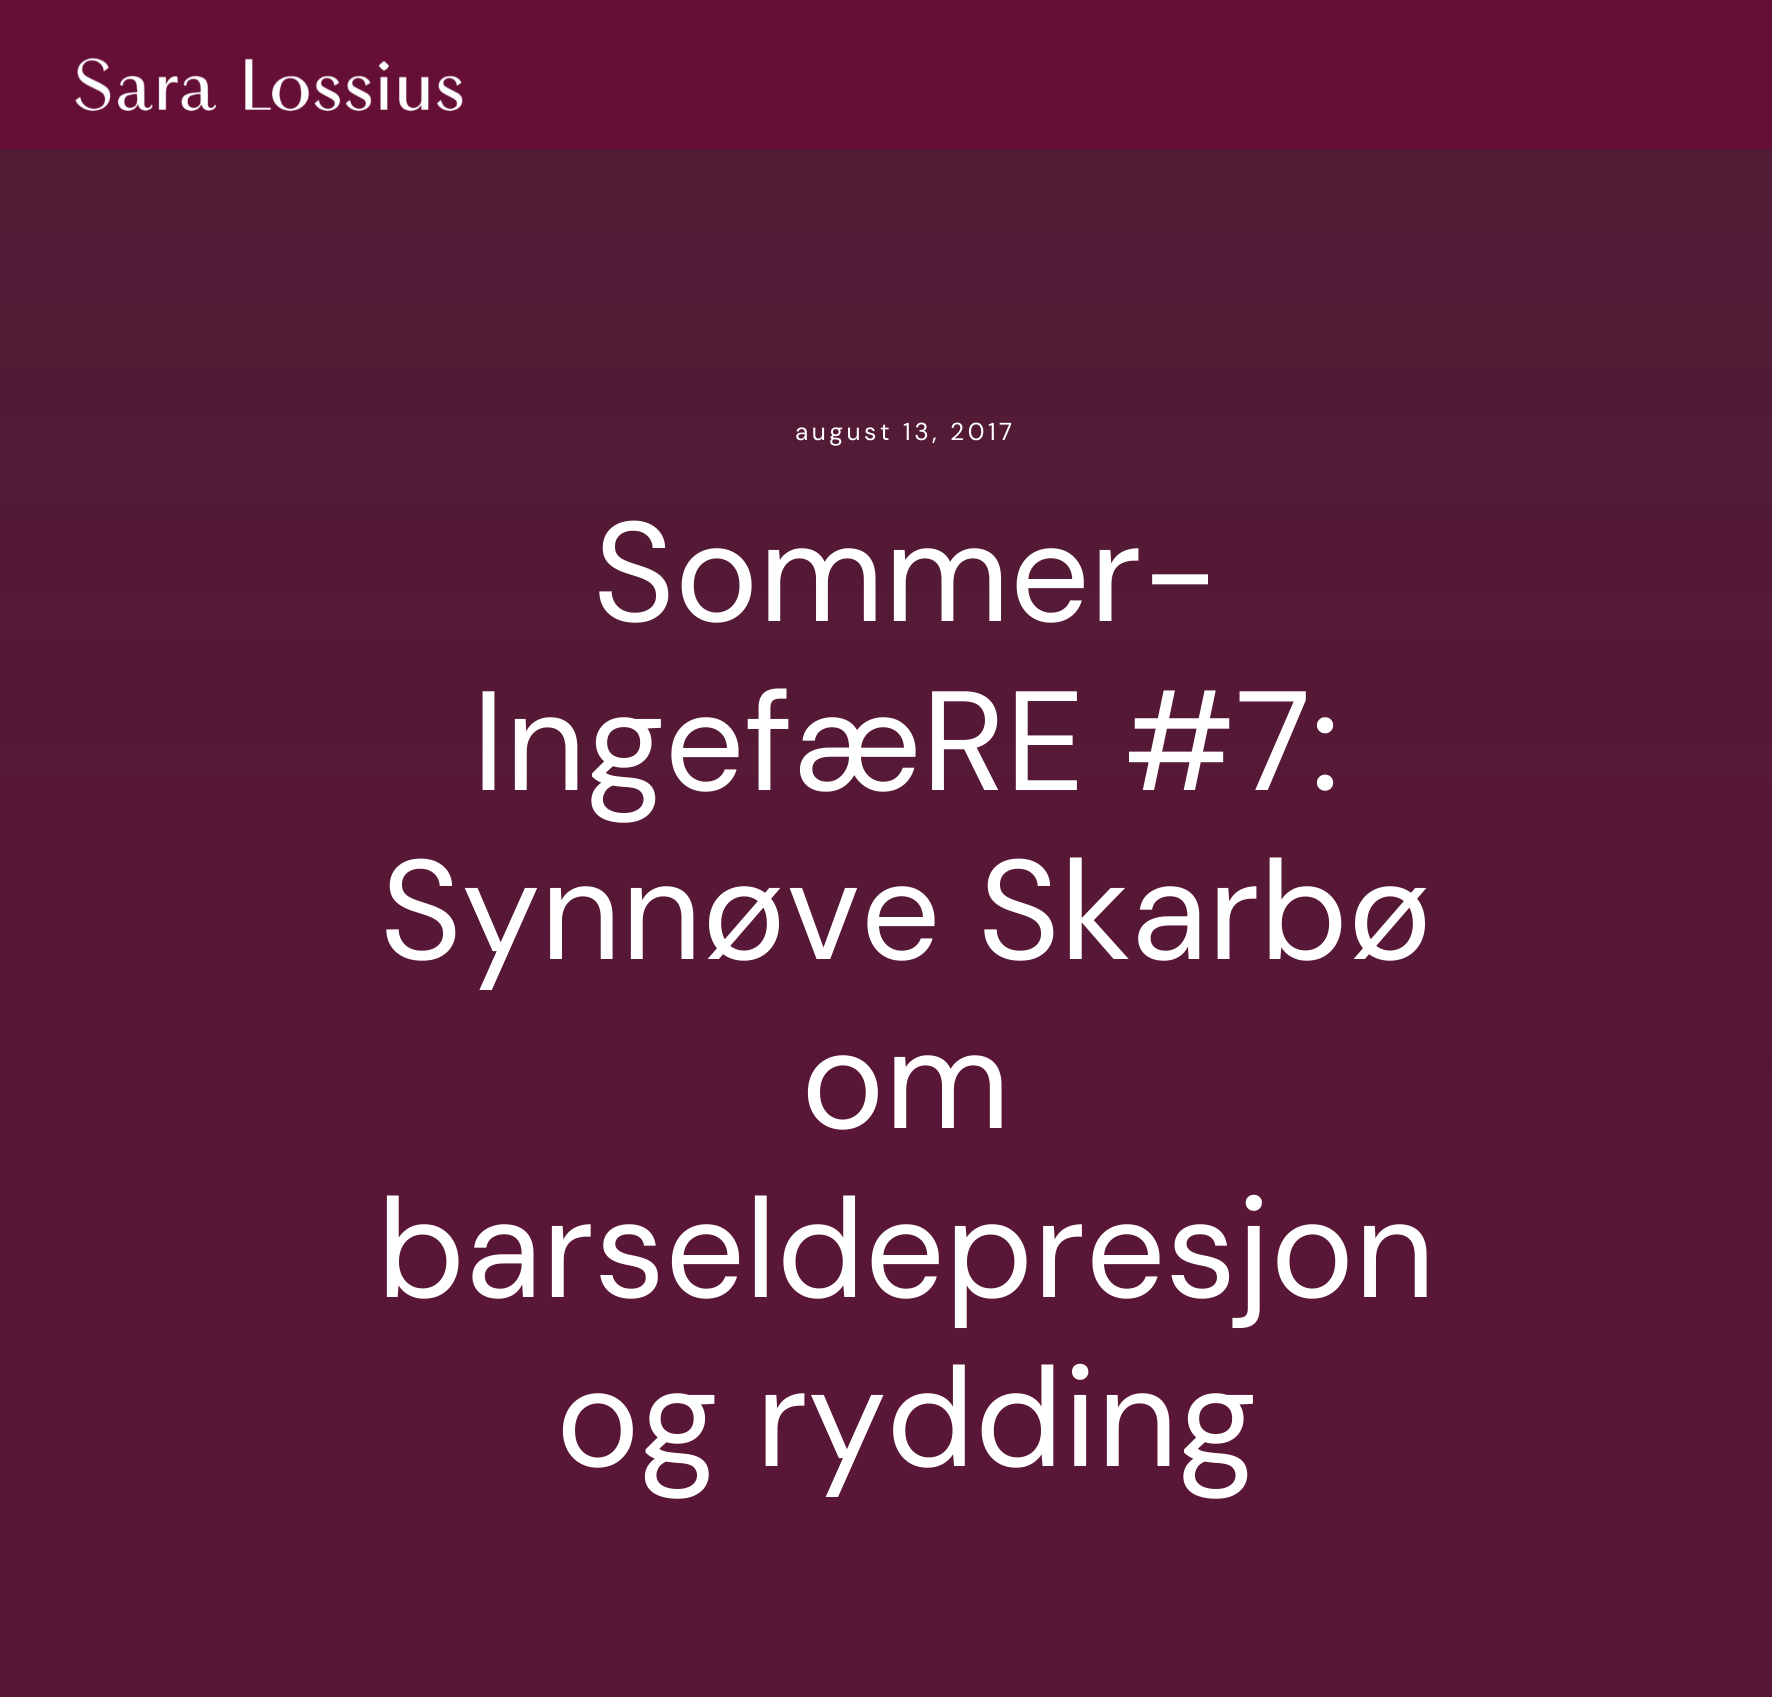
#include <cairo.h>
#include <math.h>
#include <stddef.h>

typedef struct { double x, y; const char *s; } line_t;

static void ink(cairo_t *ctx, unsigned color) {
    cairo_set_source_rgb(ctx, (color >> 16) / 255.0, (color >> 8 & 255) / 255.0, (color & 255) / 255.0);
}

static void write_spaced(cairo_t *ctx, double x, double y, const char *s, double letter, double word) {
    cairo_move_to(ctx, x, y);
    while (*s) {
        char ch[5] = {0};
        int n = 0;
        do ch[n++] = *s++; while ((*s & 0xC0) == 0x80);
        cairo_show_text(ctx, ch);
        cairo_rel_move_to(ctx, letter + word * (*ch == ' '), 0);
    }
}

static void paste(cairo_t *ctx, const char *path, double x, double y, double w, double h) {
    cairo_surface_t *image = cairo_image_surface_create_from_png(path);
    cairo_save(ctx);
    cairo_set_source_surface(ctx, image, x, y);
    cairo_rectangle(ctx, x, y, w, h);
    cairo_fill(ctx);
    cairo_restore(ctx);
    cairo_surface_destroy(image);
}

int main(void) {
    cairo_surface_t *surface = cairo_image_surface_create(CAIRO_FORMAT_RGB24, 1772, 1697);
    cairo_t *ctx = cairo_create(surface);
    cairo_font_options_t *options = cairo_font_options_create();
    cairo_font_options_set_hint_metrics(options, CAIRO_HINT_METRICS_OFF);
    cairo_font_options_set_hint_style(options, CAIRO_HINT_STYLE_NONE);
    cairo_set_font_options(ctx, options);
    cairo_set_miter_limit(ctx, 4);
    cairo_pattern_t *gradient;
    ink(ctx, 0xFFFFFF);
    cairo_paint(ctx);
    ink(ctx, 0x650E36);
    cairo_rectangle(ctx, 0, 0, 1772, 149);
    cairo_fill(ctx);
    paste(ctx, "media/1.png", 75, 57, 388, 55);
    gradient = cairo_pattern_create_linear(886, 149, 886, 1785);
    cairo_pattern_add_color_stop_rgba(gradient, 0, 0.314, 0.114, 0.208, 1);
    cairo_pattern_add_color_stop_rgba(gradient, 0.6, 0.349, 0.086, 0.212, 1);
    cairo_set_source(ctx, gradient);
    cairo_pattern_destroy(gradient);
    cairo_rectangle(ctx, 0, 149, 1772, 1548);
    cairo_fill(ctx);
    cairo_select_font_face(ctx, "DM Sans", CAIRO_FONT_SLANT_NORMAL, CAIRO_FONT_WEIGHT_NORMAL);
    cairo_set_font_size(ctx, 24.5);
    ink(ctx, 0xFFFFFF);
    write_spaced(ctx, 795, 440, "august 13, 2017", 3.5, 0);
    cairo_set_font_size(ctx, 141);
    {
        static const line_t items[] = {
            {593, 621, "Sommer-"},
            {472, 790, "IngefæRE #7:"},
            {380, 959, "Synnøve Skarbø"},
            {801, 1128, "om"},
            {377, 1297, "barseldepresjon"},
            {556, 1466, "og rydding"},
        };
        for (size_t i = 0; i < sizeof items / sizeof *items; i++) {
            cairo_move_to(ctx, items[i].x, items[i].y);
            cairo_show_text(ctx, items[i].s);
        }
    }
    cairo_surface_write_to_png(surface, "image.png");
    cairo_font_options_destroy(options);
    cairo_destroy(ctx);
    cairo_surface_destroy(surface);
    return 0;
}
